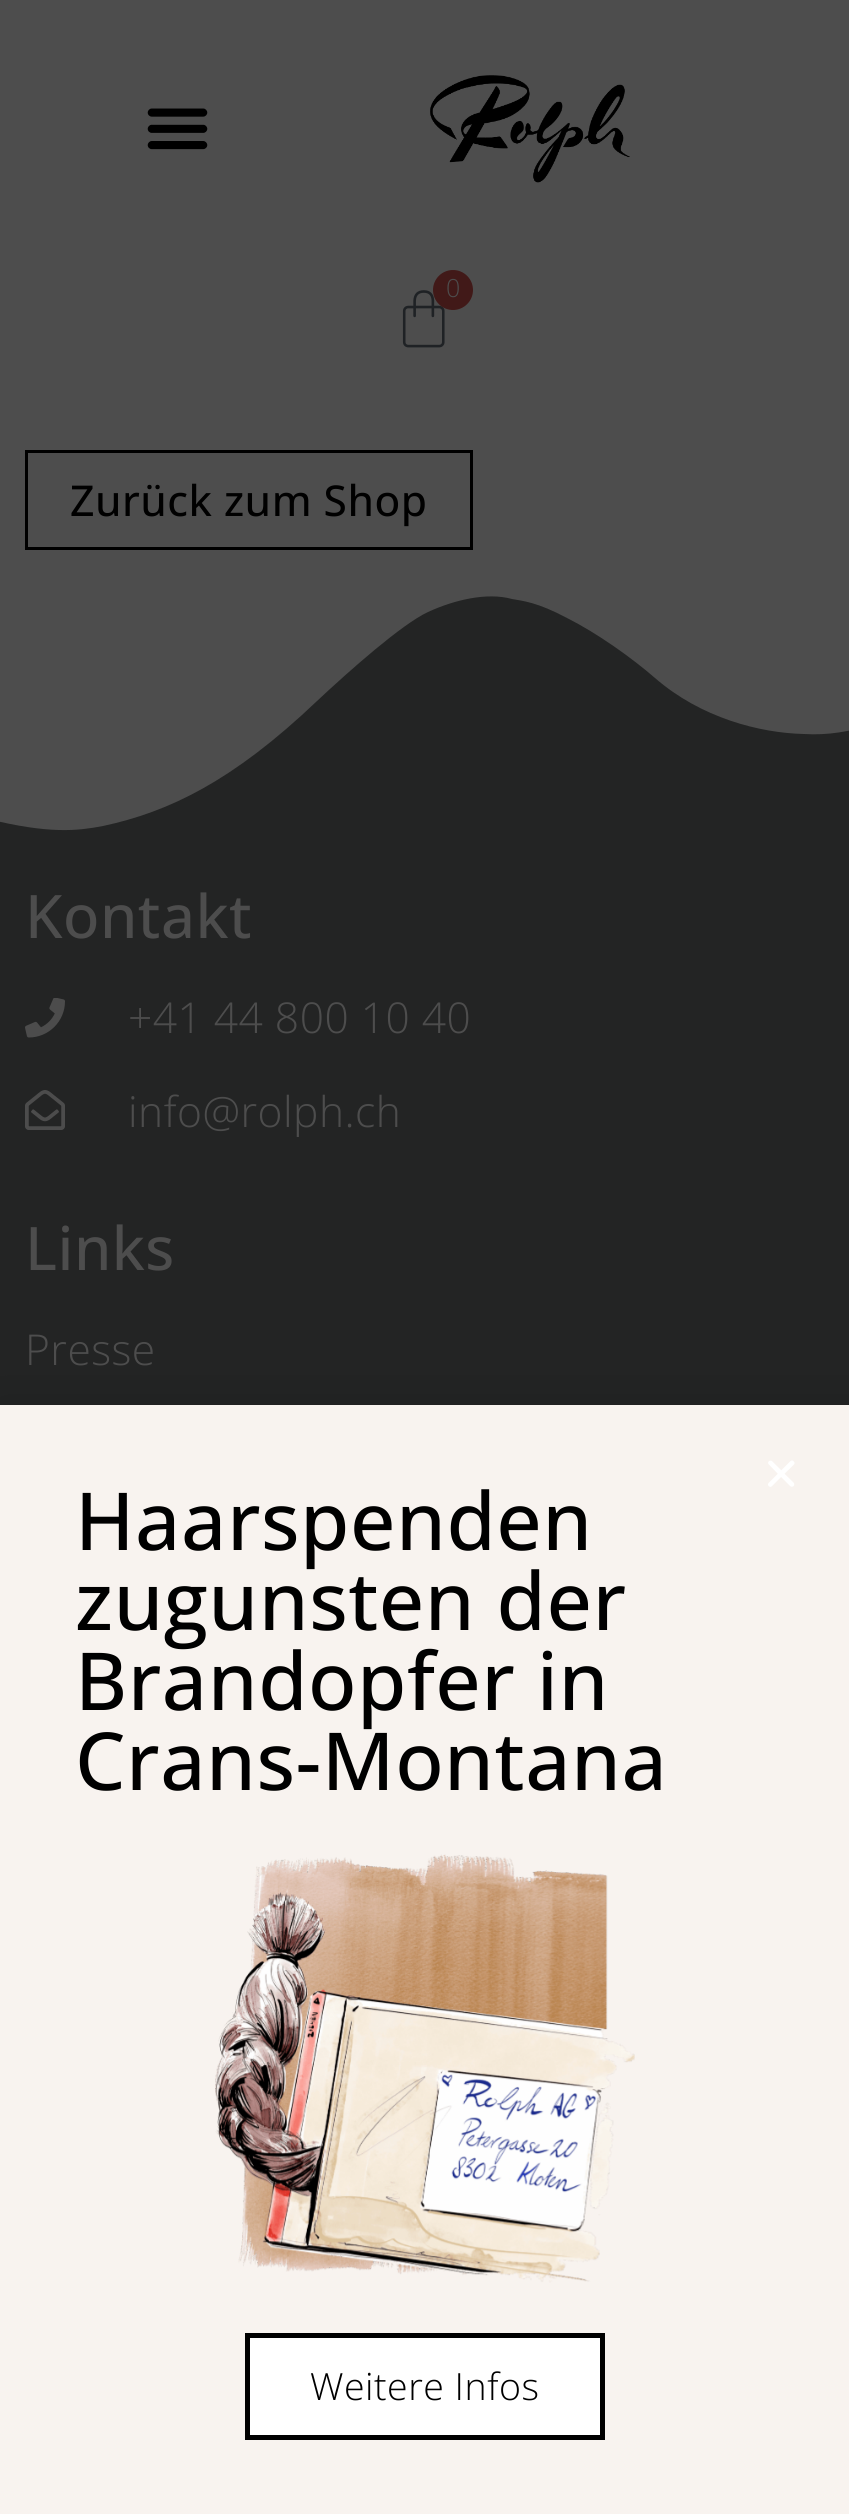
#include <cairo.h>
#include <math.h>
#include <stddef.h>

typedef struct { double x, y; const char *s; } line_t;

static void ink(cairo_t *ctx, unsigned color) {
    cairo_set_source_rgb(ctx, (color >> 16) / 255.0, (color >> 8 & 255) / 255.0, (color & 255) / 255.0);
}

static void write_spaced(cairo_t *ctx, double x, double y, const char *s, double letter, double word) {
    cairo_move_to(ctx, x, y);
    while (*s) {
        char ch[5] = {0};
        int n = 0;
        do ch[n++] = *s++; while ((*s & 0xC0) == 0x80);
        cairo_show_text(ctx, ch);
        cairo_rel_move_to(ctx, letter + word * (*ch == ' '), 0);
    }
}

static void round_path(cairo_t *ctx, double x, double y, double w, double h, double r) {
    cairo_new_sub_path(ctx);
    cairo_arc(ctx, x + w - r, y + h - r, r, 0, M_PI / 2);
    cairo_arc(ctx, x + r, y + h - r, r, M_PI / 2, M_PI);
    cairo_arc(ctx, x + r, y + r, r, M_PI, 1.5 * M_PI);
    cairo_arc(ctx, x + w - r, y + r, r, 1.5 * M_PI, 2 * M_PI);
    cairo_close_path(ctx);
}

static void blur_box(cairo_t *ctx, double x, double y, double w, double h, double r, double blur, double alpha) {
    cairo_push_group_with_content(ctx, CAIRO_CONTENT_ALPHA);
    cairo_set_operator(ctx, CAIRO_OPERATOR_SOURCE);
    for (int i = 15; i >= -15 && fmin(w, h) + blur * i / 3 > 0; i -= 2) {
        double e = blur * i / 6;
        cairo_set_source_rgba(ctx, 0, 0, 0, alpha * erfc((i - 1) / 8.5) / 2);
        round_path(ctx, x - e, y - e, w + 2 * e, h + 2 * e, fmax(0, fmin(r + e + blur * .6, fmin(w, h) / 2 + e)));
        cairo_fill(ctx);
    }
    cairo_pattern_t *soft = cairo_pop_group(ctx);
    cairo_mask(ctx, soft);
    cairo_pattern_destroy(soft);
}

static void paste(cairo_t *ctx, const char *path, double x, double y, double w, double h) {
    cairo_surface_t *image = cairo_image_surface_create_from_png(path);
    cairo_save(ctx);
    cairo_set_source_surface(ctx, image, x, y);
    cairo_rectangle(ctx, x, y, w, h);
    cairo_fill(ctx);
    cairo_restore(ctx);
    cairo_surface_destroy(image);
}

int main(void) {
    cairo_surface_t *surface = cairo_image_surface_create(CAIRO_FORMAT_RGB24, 849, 2514);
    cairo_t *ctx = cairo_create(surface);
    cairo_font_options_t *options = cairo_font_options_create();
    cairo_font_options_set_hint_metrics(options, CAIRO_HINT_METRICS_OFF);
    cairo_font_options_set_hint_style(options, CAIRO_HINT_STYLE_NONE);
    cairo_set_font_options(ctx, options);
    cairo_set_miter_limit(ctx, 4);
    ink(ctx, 0x4D4D4D);
    cairo_paint(ctx);
    paste(ctx, "media/1.png", 147, 108, 61, 42);
    paste(ctx, "media/2.png", 430, 75, 200, 108);
    paste(ctx, "media/3.png", 402, 290, 43, 58);
    ink(ctx, 0x411918);
    cairo_arc(ctx, 453, 290, 20, 0, 2 * M_PI);
    cairo_fill(ctx);
    cairo_select_font_face(ctx, "Open Sans Light", CAIRO_FONT_SLANT_NORMAL, CAIRO_FONT_WEIGHT_NORMAL);
    cairo_set_font_size(ctx, 25);
    ink(ctx, 0x4D4D4D);
    write_spaced(ctx, 446, 297, "0", 0.5, 0);
    cairo_rectangle(ctx, 26.5, 451.5, 445, 97);
    ink(ctx, 0x000000);
    cairo_set_line_width(ctx, 3);
    cairo_stroke(ctx);
    cairo_select_font_face(ctx, "Open Sans Medium", CAIRO_FONT_SLANT_NORMAL, CAIRO_FONT_WEIGHT_NORMAL);
    cairo_set_font_size(ctx, 42.5);
    write_spaced(ctx, 70, 516, "Zurück zum Shop", 0.5, 0);
    ink(ctx, 0x232424);
    cairo_rectangle(ctx, 0, 596, 849, 809);
    cairo_fill(ctx);
    cairo_save(ctx);
    cairo_rectangle(ctx, 0, 583, 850, 250);
    cairo_clip(ctx);
    ink(ctx, 0x4D4D4D);
    cairo_new_path(ctx);
    cairo_move_to(ctx, 512, 599);
    cairo_curve_to(ctx, 487, 592, 454, 600, 428, 612);
    cairo_curve_to(ctx, 402, 624, 349, 671, 317, 701);
    cairo_curve_to(ctx, 232, 782, 168, 812, 103, 826);
    cairo_curve_to(ctx, 77, 831, 49, 834, -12, 819);
    cairo_curve_to(ctx, -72, 804, -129, 755, -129, 755);
    cairo_line_to(ctx, -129, 582);
    cairo_line_to(ctx, 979, 582);
    cairo_line_to(ctx, 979, 658);
    cairo_curve_to(ctx, 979, 658, 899, 740, 804, 734);
    cairo_curve_to(ctx, 760, 733, 701, 718, 655, 678);
    cairo_curve_to(ctx, 632, 658, 597, 633, 567, 618);
    cairo_curve_to(ctx, 537, 602, 523, 601, 512, 599);
    cairo_close_path(ctx);
    cairo_fill(ctx);
    cairo_restore(ctx);
    cairo_set_font_size(ctx, 60);
    ink(ctx, 0x4D4D4D);
    write_spaced(ctx, 25, 938, "Kontakt", 0.5, 0);
    paste(ctx, "media/4.png", 25, 998, 40, 40);
    cairo_select_font_face(ctx, "Open Sans Light", CAIRO_FONT_SLANT_NORMAL, CAIRO_FONT_WEIGHT_NORMAL);
    cairo_set_font_size(ctx, 42.5);
    write_spaced(ctx, 128, 1033, "+41 44 800 10 40", 0.5, 0);
    paste(ctx, "media/5.png", 25, 1090, 40, 40);
    write_spaced(ctx, 128, 1127, "info@rolph.ch", 0.5, 0);
    cairo_select_font_face(ctx, "Open Sans Medium", CAIRO_FONT_SLANT_NORMAL, CAIRO_FONT_WEIGHT_NORMAL);
    cairo_set_font_size(ctx, 60);
    write_spaced(ctx, 25, 1270, "Links", 0.5, 0);
    cairo_select_font_face(ctx, "Open Sans Light", CAIRO_FONT_SLANT_NORMAL, CAIRO_FONT_WEIGHT_NORMAL);
    cairo_set_font_size(ctx, 42.5);
    write_spaced(ctx, 25, 1365, "Presse", 0.5, 0);
    ink(ctx, 0x000000);
    blur_box(ctx, -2, 1418, 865, 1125, 0, 29, 0.2);
    ink(ctx, 0xF8F3EF);
    cairo_rectangle(ctx, 0, 1405, 849, 1109);
    cairo_fill(ctx);
    paste(ctx, "media/6.png", 768, 1460, 27, 27);
    cairo_select_font_face(ctx, "Open Sans Medium", CAIRO_FONT_SLANT_NORMAL, CAIRO_FONT_WEIGHT_NORMAL);
    cairo_set_font_size(ctx, 80);
    ink(ctx, 0x000000);
    {
        static const line_t items[] = {
            {75, 1550, "Haarspenden"},
            {75, 1630, "zugunsten der"},
            {75, 1710, "Brandopfer in"},
            {75, 1790, "Crans-Montana"},
        };
        for (size_t i = 0; i < sizeof items / sizeof *items; i++) {
            write_spaced(ctx, items[i].x, items[i].y, items[i].s, 0.5, 0);
        }
    }
    paste(ctx, "media/7.png", 215, 1854, 420, 429);
    ink(ctx, 0xFFFFFF);
    cairo_rectangle(ctx, 247.5, 2335.5, 355, 102);
    cairo_fill_preserve(ctx);
    ink(ctx, 0x000000);
    cairo_set_line_width(ctx, 5);
    cairo_stroke(ctx);
    cairo_select_font_face(ctx, "Open Sans Light", CAIRO_FONT_SLANT_NORMAL, CAIRO_FONT_WEIGHT_NORMAL);
    cairo_set_font_size(ctx, 37.5);
    write_spaced(ctx, 310, 2400, "Weitere Infos", 0.5, 0);
    cairo_surface_write_to_png(surface, "image.png");
    cairo_font_options_destroy(options);
    cairo_destroy(ctx);
    cairo_surface_destroy(surface);
    return 0;
}
